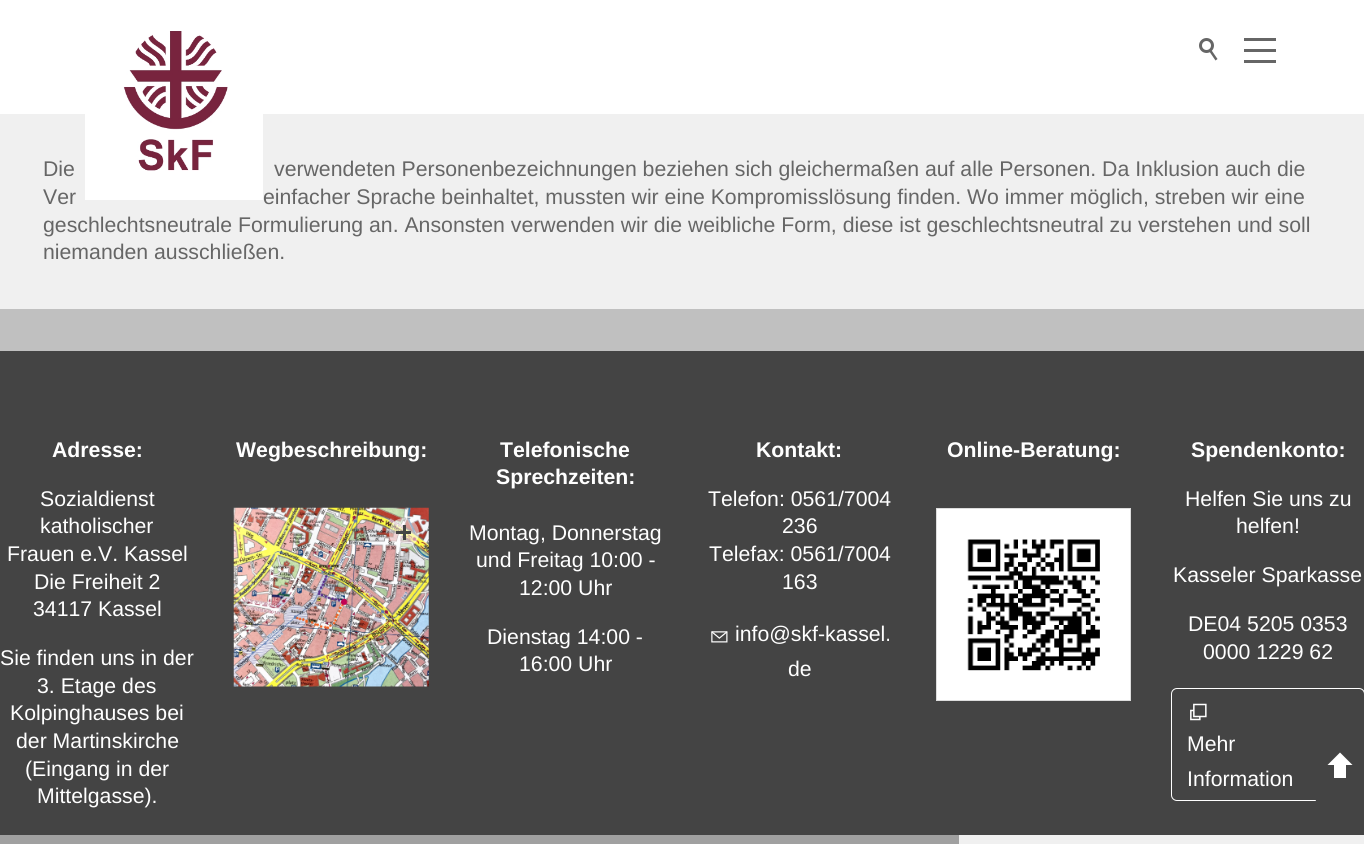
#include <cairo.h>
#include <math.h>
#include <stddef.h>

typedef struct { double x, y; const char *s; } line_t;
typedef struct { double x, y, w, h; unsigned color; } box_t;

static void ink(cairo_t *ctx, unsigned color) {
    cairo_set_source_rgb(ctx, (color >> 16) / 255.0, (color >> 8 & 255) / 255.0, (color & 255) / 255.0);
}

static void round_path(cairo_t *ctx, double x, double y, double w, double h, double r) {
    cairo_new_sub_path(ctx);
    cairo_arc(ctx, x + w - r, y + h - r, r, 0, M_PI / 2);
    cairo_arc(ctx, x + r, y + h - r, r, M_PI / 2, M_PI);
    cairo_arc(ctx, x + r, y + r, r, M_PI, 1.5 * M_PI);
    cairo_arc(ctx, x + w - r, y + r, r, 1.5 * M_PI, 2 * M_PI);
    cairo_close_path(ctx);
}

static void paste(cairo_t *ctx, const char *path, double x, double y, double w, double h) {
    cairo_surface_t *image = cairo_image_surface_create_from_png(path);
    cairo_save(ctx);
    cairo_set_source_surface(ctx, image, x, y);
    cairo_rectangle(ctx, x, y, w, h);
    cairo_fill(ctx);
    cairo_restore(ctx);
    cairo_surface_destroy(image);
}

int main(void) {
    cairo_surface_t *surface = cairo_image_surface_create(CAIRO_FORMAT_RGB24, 1364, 844);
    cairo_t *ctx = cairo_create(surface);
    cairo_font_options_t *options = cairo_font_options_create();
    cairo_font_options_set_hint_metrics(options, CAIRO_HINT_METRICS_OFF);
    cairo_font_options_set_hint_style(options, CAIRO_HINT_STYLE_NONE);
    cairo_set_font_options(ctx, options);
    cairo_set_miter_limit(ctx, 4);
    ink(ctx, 0xC0C0C0);
    cairo_paint(ctx);
    {
        static const box_t items[] = {
            {0, 0, 1364, 114, 0xFFFFFF},
            {0, 114, 1364, 195, 0xF0F0F0},
            {85, 114, 178, 86, 0xFFFFFF},
        };
        for (size_t i = 0; i < sizeof items / sizeof *items; i++) {
            ink(ctx, items[i].color);
            cairo_rectangle(ctx, items[i].x, items[i].y, items[i].w, items[i].h);
            cairo_fill(ctx);
        }
    }
    paste(ctx, "media/1.png", 123, 31, 105, 140);
    cairo_arc(ctx, 1206.5, 45.5, 6, 0, 2 * M_PI);
    ink(ctx, 0x666666);
    cairo_set_line_width(ctx, 3);
    cairo_stroke(ctx);
    cairo_new_path(ctx);
    cairo_move_to(ctx, 1211, 49.5);
    cairo_line_to(ctx, 1217.5, 59);
    cairo_line_to(ctx, 1215.5, 60.5);
    cairo_line_to(ctx, 1209, 51);
    cairo_close_path(ctx);
    cairo_fill(ctx);
    {
        static const box_t items[] = {
            {1244, 38, 32, 3, 0x666666},
            {1244, 49, 32, 3, 0x666666},
            {1244, 60, 32, 3, 0x666666},
        };
        for (size_t i = 0; i < sizeof items / sizeof *items; i++) {
            ink(ctx, items[i].color);
            cairo_rectangle(ctx, items[i].x, items[i].y, items[i].w, items[i].h);
            cairo_fill(ctx);
        }
    }
    cairo_select_font_face(ctx, "Liberation Sans", CAIRO_FONT_SLANT_NORMAL, CAIRO_FONT_WEIGHT_NORMAL);
    cairo_set_font_size(ctx, 21.25);
    {
        static const line_t items[] = {
            {43, 176, "Die"},
            {274, 176, "verwendeten Personenbezeichnungen beziehen sich gleichermaßen auf alle Personen. Da Inklusion auch die"},
            {43, 204, "Ver"},
            {263, 204, "einfacher Sprache beinhaltet, mussten wir eine Kompromisslösung finden. Wo immer möglich, streben wir eine"},
            {43, 232, "geschlechtsneutrale Formulierung an. Ansonsten verwenden wir die weibliche Form, diese ist geschlechtsneutral zu verstehen und soll"},
            {43, 259, "niemanden ausschließen."},
        };
        for (size_t i = 0; i < sizeof items / sizeof *items; i++) {
            cairo_move_to(ctx, items[i].x, items[i].y);
            cairo_show_text(ctx, items[i].s);
        }
    }
    ink(ctx, 0x444444);
    cairo_rectangle(ctx, 0, 351, 1364, 484);
    cairo_fill(ctx);
    cairo_select_font_face(ctx, "Liberation Sans", CAIRO_FONT_SLANT_NORMAL, CAIRO_FONT_WEIGHT_BOLD);
    ink(ctx, 0xFFFFFF);
    cairo_move_to(ctx, 52, 457);
    cairo_show_text(ctx, "Adresse:");
    cairo_select_font_face(ctx, "Liberation Sans", CAIRO_FONT_SLANT_NORMAL, CAIRO_FONT_WEIGHT_NORMAL);
    {
        static const line_t items[] = {
            {40, 506, "Sozialdienst"},
            {40, 533, "katholischer"},
            {7, 561, "Frauen e.V. Kassel"},
            {34, 589, "Die Freiheit 2"},
            {33, 616, "34117 Kassel"},
            {0, 665, "Sie finden uns in der"},
            {37, 693, "3. Etage des"},
            {10, 720, "Kolpinghauses bei"},
            {16, 748, "der Martinskirche"},
            {25, 776, "(Eingang in der"},
            {37, 803, "Mittelgasse)."},
        };
        for (size_t i = 0; i < sizeof items / sizeof *items; i++) {
            cairo_move_to(ctx, items[i].x, items[i].y);
            cairo_show_text(ctx, items[i].s);
        }
    }
    cairo_select_font_face(ctx, "Liberation Sans", CAIRO_FONT_SLANT_NORMAL, CAIRO_FONT_WEIGHT_BOLD);
    cairo_move_to(ctx, 236, 457);
    cairo_show_text(ctx, "Wegbeschreibung:");
    paste(ctx, "media/2.png", 233, 507, 196, 180);
    cairo_set_source_rgba(ctx, 1, 1, 1, 0.5);
    cairo_arc(ctx, 404, 533, 15, 0, 2 * M_PI);
    cairo_fill(ctx);
    ink(ctx, 0x444444);
    cairo_rectangle(ctx, 396, 531, 15, 3);
    cairo_fill(ctx);
    cairo_rectangle(ctx, 403, 525, 3, 15);
    cairo_fill(ctx);
    ink(ctx, 0xFFFFFF);
    cairo_move_to(ctx, 500, 457);
    cairo_show_text(ctx, "Telefonische");
    cairo_move_to(ctx, 496, 484);
    cairo_show_text(ctx, "Sprechzeiten:");
    cairo_select_font_face(ctx, "Liberation Sans", CAIRO_FONT_SLANT_NORMAL, CAIRO_FONT_WEIGHT_NORMAL);
    {
        static const line_t items[] = {
            {469, 540, "Montag, Donnerstag"},
            {476, 567, "und Freitag 10:00 -"},
            {519, 595, "12:00 Uhr"},
            {487, 644, "Dienstag 14:00 -"},
            {519, 671, "16:00 Uhr"},
        };
        for (size_t i = 0; i < sizeof items / sizeof *items; i++) {
            cairo_move_to(ctx, items[i].x, items[i].y);
            cairo_show_text(ctx, items[i].s);
        }
    }
    cairo_select_font_face(ctx, "Liberation Sans", CAIRO_FONT_SLANT_NORMAL, CAIRO_FONT_WEIGHT_BOLD);
    cairo_move_to(ctx, 756, 457);
    cairo_show_text(ctx, "Kontakt:");
    cairo_select_font_face(ctx, "Liberation Sans", CAIRO_FONT_SLANT_NORMAL, CAIRO_FONT_WEIGHT_NORMAL);
    {
        static const line_t items[] = {
            {708, 506, "Telefon: 0561/7004"},
            {782, 533, "236"},
            {709, 561, "Telefax: 0561/7004"},
            {782, 589, "163"},
        };
        for (size_t i = 0; i < sizeof items / sizeof *items; i++) {
            cairo_move_to(ctx, items[i].x, items[i].y);
            cairo_show_text(ctx, items[i].s);
        }
    }
    paste(ctx, "media/3.png", 711, 631, 17, 12);
    cairo_move_to(ctx, 735, 641);
    cairo_show_text(ctx, "info@skf-kassel.");
    cairo_move_to(ctx, 788, 676);
    cairo_show_text(ctx, "de");
    cairo_select_font_face(ctx, "Liberation Sans", CAIRO_FONT_SLANT_NORMAL, CAIRO_FONT_WEIGHT_BOLD);
    cairo_move_to(ctx, 947, 457);
    cairo_show_text(ctx, "Online-Beratung:");
    cairo_rectangle(ctx, 936.5, 508.5, 194, 192);
    cairo_fill_preserve(ctx);
    ink(ctx, 0xDDDDDD);
    cairo_set_line_width(ctx, 1);
    cairo_stroke(ctx);
    paste(ctx, "media/4.png", 967, 539, 133, 132);
    ink(ctx, 0xFFFFFF);
    cairo_move_to(ctx, 1191, 457);
    cairo_show_text(ctx, "Spendenkonto:");
    cairo_select_font_face(ctx, "Liberation Sans", CAIRO_FONT_SLANT_NORMAL, CAIRO_FONT_WEIGHT_NORMAL);
    {
        static const line_t items[] = {
            {1185, 506, "Helfen Sie uns zu"},
            {1236, 533, "helfen!"},
            {1173, 582, "Kasseler Sparkasse"},
            {1188, 631, "DE04 5205 0353"},
            {1203, 659, "0000 1229 62"},
        };
        for (size_t i = 0; i < sizeof items / sizeof *items; i++) {
            cairo_move_to(ctx, items[i].x, items[i].y);
            cairo_show_text(ctx, items[i].s);
        }
    }
    round_path(ctx, 1171.5, 688.5, 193, 112, 5.5);
    cairo_stroke(ctx);
    paste(ctx, "media/5.png", 1190, 703, 17, 18);
    cairo_move_to(ctx, 1187, 751);
    cairo_show_text(ctx, "Mehr");
    cairo_move_to(ctx, 1187, 786);
    cairo_show_text(ctx, "Information");
    ink(ctx, 0x444444);
    cairo_new_path(ctx);
    cairo_move_to(ctx, 1323, 725);
    cairo_line_to(ctx, 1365, 725);
    cairo_line_to(ctx, 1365, 805);
    cairo_line_to(ctx, 1323, 805);
    cairo_curve_to(ctx, 1318.5, 805, 1315, 801.5, 1315, 797);
    cairo_line_to(ctx, 1315, 733);
    cairo_curve_to(ctx, 1315, 728.5, 1318.5, 725, 1323, 725);
    cairo_close_path(ctx);
    cairo_fill(ctx);
    ink(ctx, 0xFFFFFF);
    cairo_new_path(ctx);
    cairo_move_to(ctx, 1352.5, 765);
    cairo_line_to(ctx, 1327.5, 765);
    cairo_line_to(ctx, 1340, 752.5);
    cairo_close_path(ctx);
    cairo_fill(ctx);
    {
        static const box_t items[] = {
            {1334, 765, 12, 13, 0xFFFFFF},
            {959, 835, 405, 9, 0xF0F0F0},
            {0, 835, 959, 9, 0xA0A0A0},
        };
        for (size_t i = 0; i < sizeof items / sizeof *items; i++) {
            ink(ctx, items[i].color);
            cairo_rectangle(ctx, items[i].x, items[i].y, items[i].w, items[i].h);
            cairo_fill(ctx);
        }
    }
    cairo_surface_write_to_png(surface, "image.png");
    cairo_font_options_destroy(options);
    cairo_destroy(ctx);
    cairo_surface_destroy(surface);
    return 0;
}
